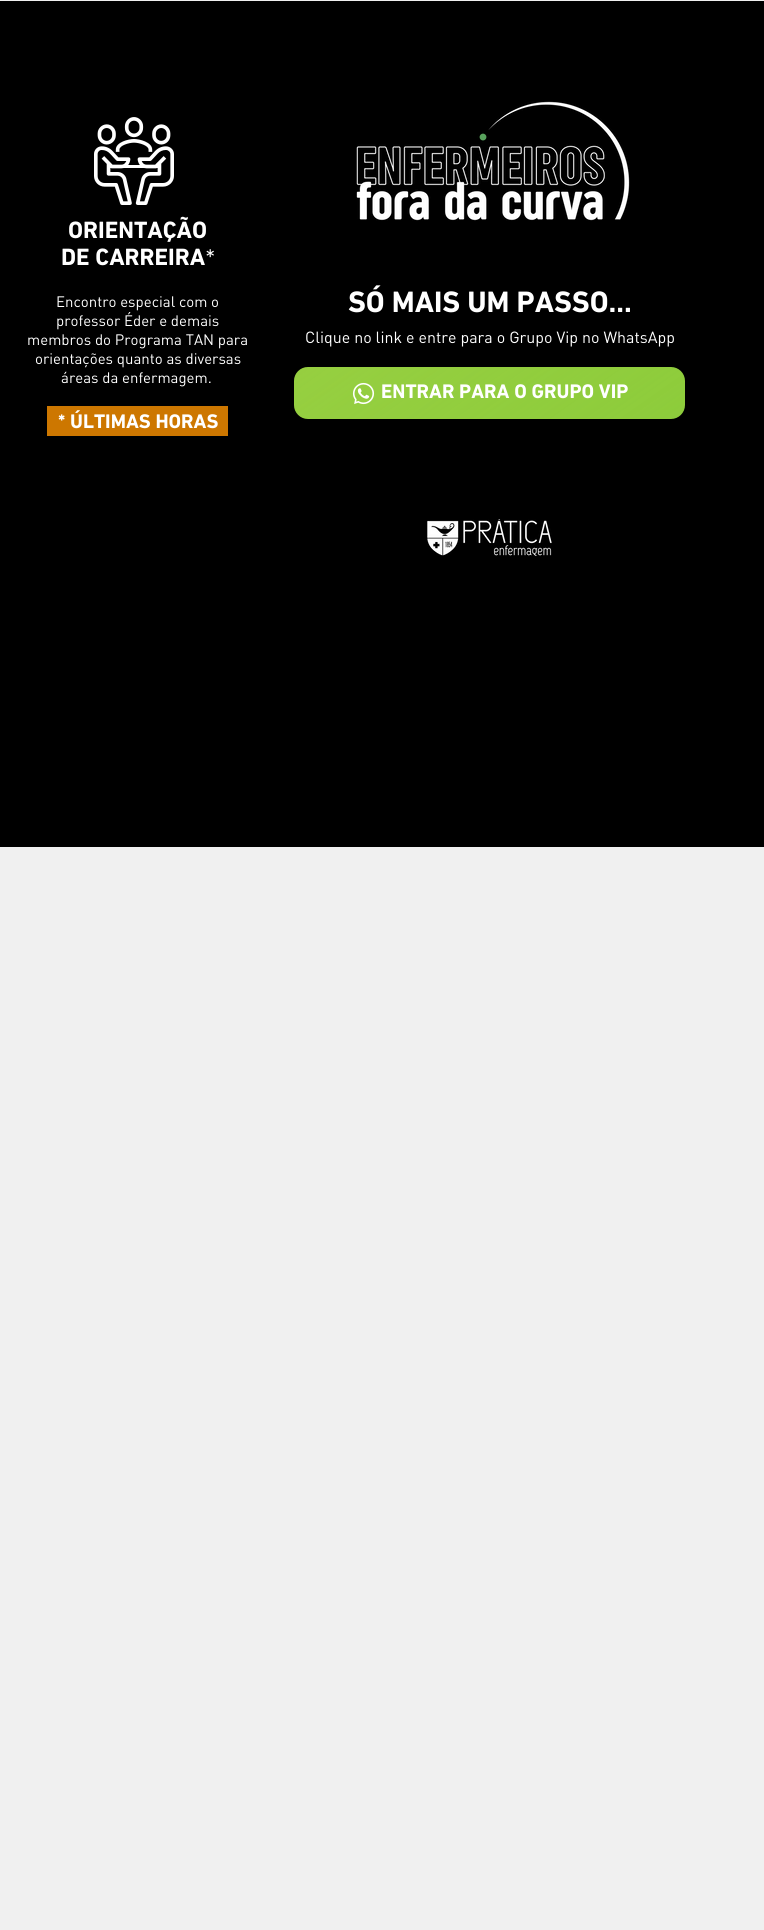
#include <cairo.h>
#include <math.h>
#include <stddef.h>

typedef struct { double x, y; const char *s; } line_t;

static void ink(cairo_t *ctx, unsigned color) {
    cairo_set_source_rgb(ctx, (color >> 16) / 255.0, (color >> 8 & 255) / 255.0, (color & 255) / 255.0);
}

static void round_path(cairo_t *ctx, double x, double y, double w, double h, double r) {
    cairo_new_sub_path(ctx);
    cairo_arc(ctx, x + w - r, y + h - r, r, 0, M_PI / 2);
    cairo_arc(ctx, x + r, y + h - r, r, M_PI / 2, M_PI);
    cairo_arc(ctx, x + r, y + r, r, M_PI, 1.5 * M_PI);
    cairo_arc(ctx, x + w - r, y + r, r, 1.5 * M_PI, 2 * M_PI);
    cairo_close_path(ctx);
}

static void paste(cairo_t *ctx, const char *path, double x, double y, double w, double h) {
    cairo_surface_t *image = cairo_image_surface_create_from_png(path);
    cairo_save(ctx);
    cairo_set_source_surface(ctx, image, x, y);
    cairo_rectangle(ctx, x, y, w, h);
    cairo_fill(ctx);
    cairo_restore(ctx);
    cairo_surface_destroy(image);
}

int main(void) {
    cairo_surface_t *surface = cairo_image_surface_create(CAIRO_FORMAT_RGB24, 764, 1930);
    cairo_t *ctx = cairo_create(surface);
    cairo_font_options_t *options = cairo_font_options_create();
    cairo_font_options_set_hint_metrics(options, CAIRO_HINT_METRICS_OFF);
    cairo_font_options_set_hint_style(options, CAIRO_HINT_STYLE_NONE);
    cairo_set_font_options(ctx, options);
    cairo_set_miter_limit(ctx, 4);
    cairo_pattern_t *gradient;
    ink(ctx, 0xF0F0F0);
    cairo_paint(ctx);
    ink(ctx, 0x000000);
    cairo_rectangle(ctx, 0, 1, 764, 846);
    cairo_fill(ctx);
    paste(ctx, "media/1.png", 356, 101, 274, 120);
    paste(ctx, "media/2.png", 94, 117, 80, 88);
    cairo_select_font_face(ctx, "DIN Next", CAIRO_FONT_SLANT_NORMAL, CAIRO_FONT_WEIGHT_BOLD);
    cairo_set_font_size(ctx, 24);
    ink(ctx, 0xFFFFFF);
    cairo_move_to(ctx, 68, 238);
    cairo_show_text(ctx, "ORIENTAÇÃO");
    cairo_move_to(ctx, 61, 265);
    cairo_show_text(ctx, "DE CARREIRA");
    cairo_select_font_face(ctx, "DIN", CAIRO_FONT_SLANT_NORMAL, CAIRO_FONT_WEIGHT_NORMAL);
    cairo_set_font_size(ctx, 22);
    cairo_move_to(ctx, 205, 265);
    cairo_show_text(ctx, "*");
    cairo_set_font_size(ctx, 15);
    {
        static const line_t items[] = {
            {56, 307, "Encontro especial com o"},
            {56, 326, "professor Éder e demais"},
            {27, 345, "membros do Programa TAN para"},
            {35, 364, "orientações quanto as diversas"},
            {61, 383, "áreas da enfermagem."},
        };
        for (size_t i = 0; i < sizeof items / sizeof *items; i++) {
            cairo_move_to(ctx, items[i].x, items[i].y);
            cairo_show_text(ctx, items[i].s);
        }
    }
    ink(ctx, 0xCD7700);
    cairo_rectangle(ctx, 47, 406, 181, 30);
    cairo_fill(ctx);
    cairo_select_font_face(ctx, "DIN Next", CAIRO_FONT_SLANT_NORMAL, CAIRO_FONT_WEIGHT_BOLD);
    cairo_set_font_size(ctx, 20);
    ink(ctx, 0xFFFFFF);
    cairo_move_to(ctx, 58, 428);
    cairo_show_text(ctx, "* ÚLTIMAS HORAS");
    cairo_set_font_size(ctx, 30);
    cairo_move_to(ctx, 348, 312);
    cairo_show_text(ctx, "SÓ MAIS UM PASSO...");
    cairo_select_font_face(ctx, "DIN", CAIRO_FONT_SLANT_NORMAL, CAIRO_FONT_WEIGHT_NORMAL);
    cairo_set_font_size(ctx, 16);
    cairo_move_to(ctx, 305, 343);
    cairo_show_text(ctx, "Clique no link e entre para o Grupo Vip no WhatsApp");
    ink(ctx, 0x8DCC3B);
    round_path(ctx, 294, 367, 391, 52, 14);
    cairo_fill(ctx);
    gradient = cairo_pattern_create_linear(413, 284, 566, 502);
    cairo_pattern_add_color_stop_rgba(gradient, 0, 1, 0.933, 0.933, 0.21);
    cairo_pattern_add_color_stop_rgba(gradient, 0, 0.729, 0.855, 0.333, 0.21);
    cairo_pattern_add_color_stop_rgba(gradient, 1, 0.729, 0.855, 0.333, 0);
    cairo_set_source(ctx, gradient);
    cairo_pattern_destroy(gradient);
    round_path(ctx, 294, 367, 391, 52, 14);
    cairo_fill(ctx);
    paste(ctx, "media/3.png", 352, 382, 23, 23);
    cairo_select_font_face(ctx, "DIN Next", CAIRO_FONT_SLANT_NORMAL, CAIRO_FONT_WEIGHT_BOLD);
    cairo_set_font_size(ctx, 20);
    ink(ctx, 0xFFFFFF);
    cairo_move_to(ctx, 381, 398);
    cairo_show_text(ctx, "ENTRAR PARA O GRUPO VIP");
    paste(ctx, "media/4.png", 427, 519, 125, 37);
    cairo_surface_write_to_png(surface, "image.png");
    cairo_font_options_destroy(options);
    cairo_destroy(ctx);
    cairo_surface_destroy(surface);
    return 0;
}
